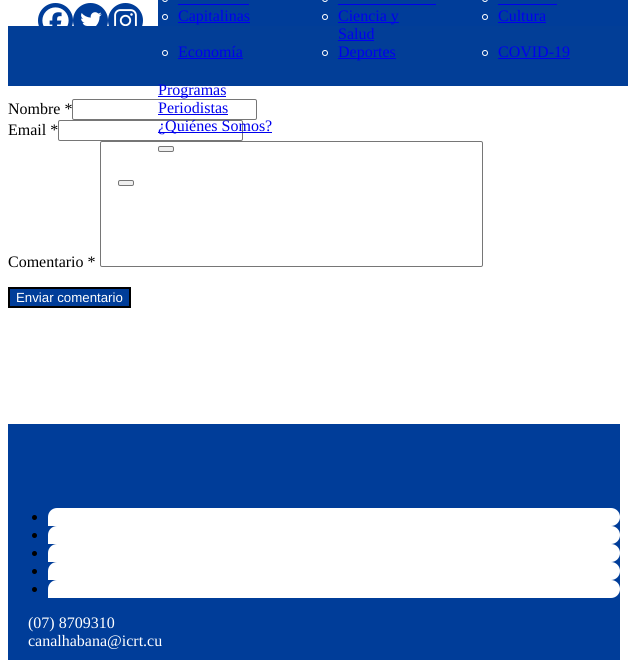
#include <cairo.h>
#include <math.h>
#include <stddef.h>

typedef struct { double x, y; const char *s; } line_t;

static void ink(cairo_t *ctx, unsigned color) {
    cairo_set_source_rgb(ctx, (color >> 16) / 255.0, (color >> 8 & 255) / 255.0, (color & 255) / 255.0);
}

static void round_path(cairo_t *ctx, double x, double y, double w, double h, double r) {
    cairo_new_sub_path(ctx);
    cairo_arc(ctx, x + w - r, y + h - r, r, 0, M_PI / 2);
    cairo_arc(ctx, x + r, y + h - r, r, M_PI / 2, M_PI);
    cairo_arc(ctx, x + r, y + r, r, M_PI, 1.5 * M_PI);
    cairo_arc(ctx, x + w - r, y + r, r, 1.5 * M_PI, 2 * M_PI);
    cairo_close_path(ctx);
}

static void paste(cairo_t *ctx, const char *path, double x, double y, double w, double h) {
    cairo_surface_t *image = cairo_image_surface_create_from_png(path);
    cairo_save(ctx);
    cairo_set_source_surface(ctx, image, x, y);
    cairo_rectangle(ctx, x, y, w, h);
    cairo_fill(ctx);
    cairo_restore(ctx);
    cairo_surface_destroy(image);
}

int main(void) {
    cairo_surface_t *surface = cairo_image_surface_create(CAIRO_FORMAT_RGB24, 628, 668);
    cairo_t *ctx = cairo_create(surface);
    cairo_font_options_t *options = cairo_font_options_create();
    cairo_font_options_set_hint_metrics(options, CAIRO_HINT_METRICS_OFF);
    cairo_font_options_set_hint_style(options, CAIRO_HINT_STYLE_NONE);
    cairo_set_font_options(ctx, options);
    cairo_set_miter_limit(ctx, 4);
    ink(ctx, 0xFFFFFF);
    cairo_paint(ctx);
    ink(ctx, 0x003D99);
    cairo_arc(ctx, 55.5, 20.5, 17.5, 0, 2 * M_PI);
    cairo_fill(ctx);
    cairo_arc(ctx, 90.5, 20.5, 17.5, 0, 2 * M_PI);
    cairo_fill(ctx);
    cairo_arc(ctx, 125.5, 20.5, 17.5, 0, 2 * M_PI);
    cairo_fill(ctx);
    ink(ctx, 0x023E97);
    cairo_rectangle(ctx, 8, 26, 620, 60);
    cairo_fill(ctx);
    ink(ctx, 0x003D99);
    cairo_rectangle(ctx, 158, 0, 470, 26);
    cairo_fill(ctx);
    cairo_arc(ctx, 165, -1, 2.5, 0, 2 * M_PI);
    ink(ctx, 0xFFFFFF);
    cairo_set_line_width(ctx, 1);
    cairo_stroke(ctx);
    ink(ctx, 0x0000EE);
    cairo_rectangle(ctx, 178, 4, 71, 1);
    cairo_fill(ctx);
    cairo_arc(ctx, 325, -1, 2.5, 0, 2 * M_PI);
    ink(ctx, 0xFFFFFF);
    cairo_stroke(ctx);
    ink(ctx, 0x0000EE);
    cairo_rectangle(ctx, 338, 4, 98, 1);
    cairo_fill(ctx);
    cairo_arc(ctx, 485, -1, 2.5, 0, 2 * M_PI);
    ink(ctx, 0xFFFFFF);
    cairo_stroke(ctx);
    ink(ctx, 0x0000EE);
    cairo_rectangle(ctx, 498, 4, 59, 1);
    cairo_fill(ctx);
    cairo_arc(ctx, 165, 17, 2.5, 0, 2 * M_PI);
    ink(ctx, 0xFFFFFF);
    cairo_stroke(ctx);
    ink(ctx, 0x0000EE);
    cairo_rectangle(ctx, 178, 22, 72, 1);
    cairo_fill(ctx);
    cairo_select_font_face(ctx, "Liberation Serif", CAIRO_FONT_SLANT_NORMAL, CAIRO_FONT_WEIGHT_NORMAL);
    cairo_set_font_size(ctx, 16);
    cairo_move_to(ctx, 178, 21);
    cairo_show_text(ctx, "Capitalinas");
    cairo_new_path(ctx);
    cairo_arc(ctx, 325, 17, 2.5, 0, 2 * M_PI);
    ink(ctx, 0xFFFFFF);
    cairo_stroke(ctx);
    ink(ctx, 0x0000EE);
    cairo_rectangle(ctx, 338, 22, 61, 1);
    cairo_fill(ctx);
    cairo_move_to(ctx, 338, 21);
    cairo_show_text(ctx, "Ciencia y");
    cairo_move_to(ctx, 338, 39);
    cairo_show_text(ctx, "Salud");
    cairo_rectangle(ctx, 338, 40, 36, 1);
    cairo_fill(ctx);
    cairo_arc(ctx, 485, 17, 2.5, 0, 2 * M_PI);
    ink(ctx, 0xFFFFFF);
    cairo_stroke(ctx);
    ink(ctx, 0x0000EE);
    cairo_move_to(ctx, 498, 21);
    cairo_show_text(ctx, "Cultura");
    cairo_rectangle(ctx, 498, 22, 48, 1);
    cairo_fill(ctx);
    cairo_arc(ctx, 165, 53, 2.5, 0, 2 * M_PI);
    ink(ctx, 0xFFFFFF);
    cairo_stroke(ctx);
    ink(ctx, 0x0000EE);
    cairo_move_to(ctx, 178, 57);
    cairo_show_text(ctx, "Economía");
    cairo_rectangle(ctx, 178, 58, 65, 1);
    cairo_fill(ctx);
    cairo_arc(ctx, 325, 53, 2.5, 0, 2 * M_PI);
    ink(ctx, 0xFFFFFF);
    cairo_stroke(ctx);
    ink(ctx, 0x0000EE);
    cairo_rectangle(ctx, 338, 58, 58, 1);
    cairo_fill(ctx);
    cairo_move_to(ctx, 338, 57);
    cairo_show_text(ctx, "Deportes");
    cairo_new_path(ctx);
    cairo_arc(ctx, 485, 53, 2.5, 0, 2 * M_PI);
    ink(ctx, 0xFFFFFF);
    cairo_stroke(ctx);
    ink(ctx, 0x0000EE);
    cairo_move_to(ctx, 498, 57);
    cairo_show_text(ctx, "COVID-19");
    cairo_rectangle(ctx, 498, 58, 72, 1);
    cairo_fill(ctx);
    cairo_rectangle(ctx, 158, 96, 68, 1);
    cairo_fill(ctx);
    cairo_move_to(ctx, 158, 95);
    cairo_show_text(ctx, "Programas");
    round_path(ctx, 72.5, 99.5, 184, 20, 1.5);
    ink(ctx, 0x767676);
    cairo_stroke(ctx);
    ink(ctx, 0x0000EE);
    cairo_move_to(ctx, 158, 113);
    cairo_show_text(ctx, "Periodistas");
    cairo_rectangle(ctx, 158, 114, 70, 1);
    cairo_fill(ctx);
    round_path(ctx, 58.5, 120.5, 184, 20, 1.5);
    ink(ctx, 0x767676);
    cairo_stroke(ctx);
    ink(ctx, 0x0000EE);
    cairo_rectangle(ctx, 158, 132, 114, 1);
    cairo_fill(ctx);
    cairo_move_to(ctx, 158, 131);
    cairo_show_text(ctx, "¿Quiénes Somos?");
    round_path(ctx, 100.5, 141.5, 382, 125, 1.5);
    ink(ctx, 0x767676);
    cairo_stroke(ctx);
    ink(ctx, 0xEFEFEF);
    round_path(ctx, 158.5, 146.5, 15, 5, 1.5);
    cairo_fill_preserve(ctx);
    ink(ctx, 0x767676);
    cairo_stroke(ctx);
    ink(ctx, 0xEFEFEF);
    round_path(ctx, 118.5, 180.5, 15, 5, 1.5);
    cairo_fill_preserve(ctx);
    ink(ctx, 0x767676);
    cairo_stroke(ctx);
    paste(ctx, "media/1.png", 42, 7, 27, 19);
    paste(ctx, "media/2.png", 81, 12, 21, 14);
    paste(ctx, "media/3.png", 114, 9, 23, 17);
    ink(ctx, 0x000000);
    {
        static const line_t items[] = {
            {8, 114, "Nombre *"},
            {8, 135, "Email *"},
            {8, 267, "Comentario *"},
        };
        for (size_t i = 0; i < sizeof items / sizeof *items; i++) {
            cairo_move_to(ctx, items[i].x, items[i].y);
            cairo_show_text(ctx, items[i].s);
        }
    }
    ink(ctx, 0x003D99);
    cairo_rectangle(ctx, 9, 288, 121, 19);
    cairo_fill_preserve(ctx);
    ink(ctx, 0x000000);
    cairo_set_line_width(ctx, 2);
    cairo_stroke(ctx);
    cairo_select_font_face(ctx, "Liberation Sans", CAIRO_FONT_SLANT_NORMAL, CAIRO_FONT_WEIGHT_NORMAL);
    cairo_set_font_size(ctx, 13.25);
    ink(ctx, 0xFFFFFF);
    cairo_move_to(ctx, 16, 302);
    cairo_show_text(ctx, "Enviar comentario");
    ink(ctx, 0x003D99);
    cairo_rectangle(ctx, 8, 424, 612, 236);
    cairo_fill(ctx);
    ink(ctx, 0xFFFFFF);
    cairo_new_path(ctx);
    cairo_move_to(ctx, 57, 508);
    cairo_line_to(ctx, 611, 508);
    cairo_curve_to(ctx, 616, 508, 620, 512, 620, 517);
    cairo_curve_to(ctx, 620, 522, 616, 526, 611, 526);
    cairo_line_to(ctx, 48, 526);
    cairo_line_to(ctx, 48, 517);
    cairo_curve_to(ctx, 48, 512, 52, 508, 57, 508);
    cairo_close_path(ctx);
    cairo_fill(ctx);
    ink(ctx, 0x000000);
    cairo_arc(ctx, 34.5, 517.5, 2.5, 0, 2 * M_PI);
    cairo_fill(ctx);
    ink(ctx, 0xFFFFFF);
    cairo_new_path(ctx);
    cairo_move_to(ctx, 57, 526);
    cairo_line_to(ctx, 611, 526);
    cairo_curve_to(ctx, 616, 526, 620, 530, 620, 535);
    cairo_curve_to(ctx, 620, 540, 616, 544, 611, 544);
    cairo_line_to(ctx, 48, 544);
    cairo_line_to(ctx, 48, 535);
    cairo_curve_to(ctx, 48, 530, 52, 526, 57, 526);
    cairo_close_path(ctx);
    cairo_fill(ctx);
    ink(ctx, 0x000000);
    cairo_arc(ctx, 34.5, 535.5, 2.5, 0, 2 * M_PI);
    cairo_fill(ctx);
    ink(ctx, 0xFFFFFF);
    cairo_new_path(ctx);
    cairo_move_to(ctx, 57, 544);
    cairo_line_to(ctx, 611, 544);
    cairo_curve_to(ctx, 616, 544, 620, 548, 620, 553);
    cairo_curve_to(ctx, 620, 558, 616, 562, 611, 562);
    cairo_line_to(ctx, 48, 562);
    cairo_line_to(ctx, 48, 553);
    cairo_curve_to(ctx, 48, 548, 52, 544, 57, 544);
    cairo_close_path(ctx);
    cairo_fill(ctx);
    ink(ctx, 0x000000);
    cairo_arc(ctx, 34.5, 553.5, 2.5, 0, 2 * M_PI);
    cairo_fill(ctx);
    ink(ctx, 0xFFFFFF);
    cairo_new_path(ctx);
    cairo_move_to(ctx, 57, 562);
    cairo_line_to(ctx, 611, 562);
    cairo_curve_to(ctx, 616, 562, 620, 566, 620, 571);
    cairo_curve_to(ctx, 620, 576, 616, 580, 611, 580);
    cairo_line_to(ctx, 48, 580);
    cairo_line_to(ctx, 48, 571);
    cairo_curve_to(ctx, 48, 566, 52, 562, 57, 562);
    cairo_close_path(ctx);
    cairo_fill(ctx);
    ink(ctx, 0x000000);
    cairo_arc(ctx, 34.5, 571.5, 2.5, 0, 2 * M_PI);
    cairo_fill(ctx);
    ink(ctx, 0xFFFFFF);
    cairo_new_path(ctx);
    cairo_move_to(ctx, 57, 580);
    cairo_line_to(ctx, 611, 580);
    cairo_curve_to(ctx, 616, 580, 620, 584, 620, 589);
    cairo_curve_to(ctx, 620, 594, 616, 598, 611, 598);
    cairo_line_to(ctx, 48, 598);
    cairo_line_to(ctx, 48, 589);
    cairo_curve_to(ctx, 48, 584, 52, 580, 57, 580);
    cairo_close_path(ctx);
    cairo_fill(ctx);
    ink(ctx, 0x000000);
    cairo_arc(ctx, 34.5, 589.5, 2.5, 0, 2 * M_PI);
    cairo_fill(ctx);
    cairo_select_font_face(ctx, "Liberation Serif", CAIRO_FONT_SLANT_NORMAL, CAIRO_FONT_WEIGHT_NORMAL);
    cairo_set_font_size(ctx, 16);
    ink(ctx, 0xFFFFFF);
    cairo_move_to(ctx, 28, 628);
    cairo_show_text(ctx, "(07) 8709310");
    cairo_move_to(ctx, 28, 646);
    cairo_show_text(ctx, "canalhabana@icrt.cu");
    cairo_surface_write_to_png(surface, "image.png");
    cairo_font_options_destroy(options);
    cairo_destroy(ctx);
    cairo_surface_destroy(surface);
    return 0;
}
